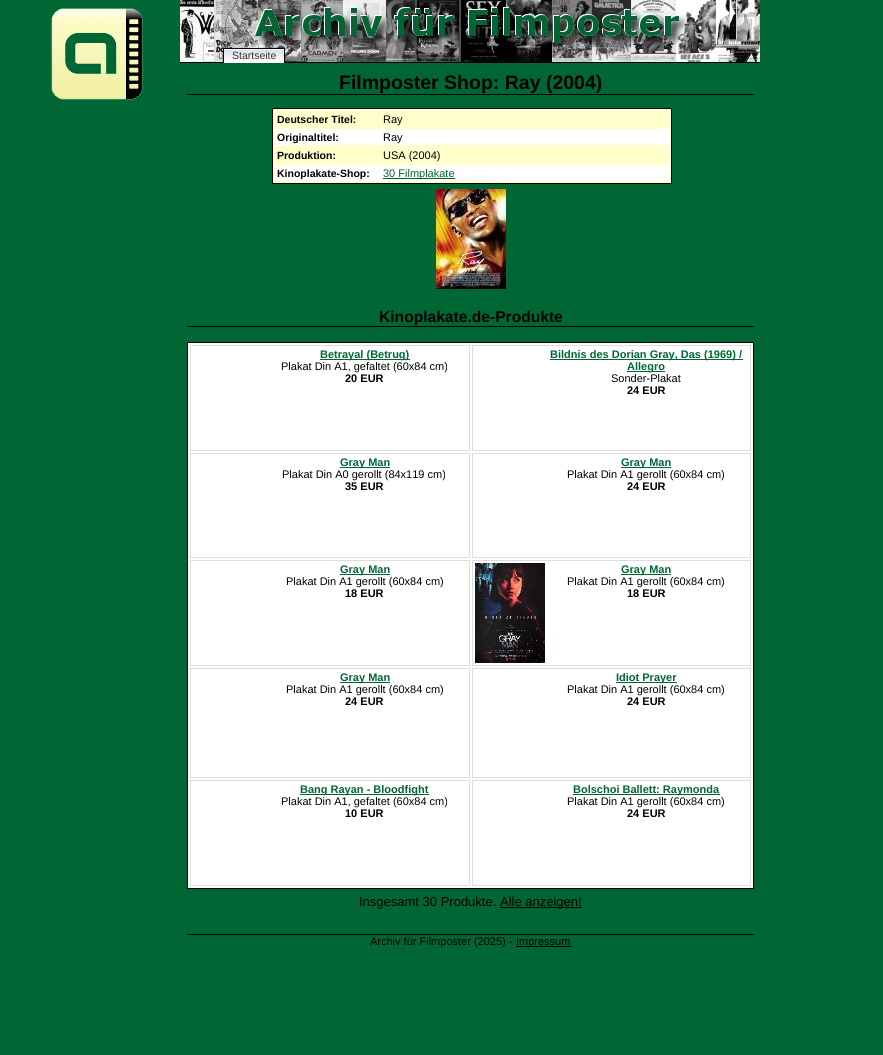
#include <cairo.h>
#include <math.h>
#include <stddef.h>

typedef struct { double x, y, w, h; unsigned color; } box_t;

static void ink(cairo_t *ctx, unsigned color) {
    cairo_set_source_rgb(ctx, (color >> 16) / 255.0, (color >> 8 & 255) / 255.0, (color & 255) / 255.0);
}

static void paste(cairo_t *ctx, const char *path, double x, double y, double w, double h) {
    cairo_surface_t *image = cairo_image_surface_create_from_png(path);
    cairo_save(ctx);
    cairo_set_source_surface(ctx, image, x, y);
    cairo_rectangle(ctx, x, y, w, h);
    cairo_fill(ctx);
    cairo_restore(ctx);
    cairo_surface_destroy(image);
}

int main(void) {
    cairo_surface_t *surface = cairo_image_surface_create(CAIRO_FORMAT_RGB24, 883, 1055);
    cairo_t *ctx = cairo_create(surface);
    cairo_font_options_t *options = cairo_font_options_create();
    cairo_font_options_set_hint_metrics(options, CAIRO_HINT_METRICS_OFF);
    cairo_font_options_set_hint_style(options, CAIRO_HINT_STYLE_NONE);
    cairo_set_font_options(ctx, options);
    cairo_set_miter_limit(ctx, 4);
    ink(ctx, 0x006633);
    cairo_paint(ctx);
    paste(ctx, "media/1.png", 51, 8, 92, 92);
    ink(ctx, 0x000000);
    cairo_rectangle(ctx, 180, 62, 580, 1);
    cairo_fill(ctx);
    paste(ctx, "media/2.png", 180, 0, 580, 62);
    ink(ctx, 0xFFFFFF);
    cairo_rectangle(ctx, 224, 49, 60, 14);
    cairo_fill(ctx);
    paste(ctx, "media/3.png", 224, 50, 60, 11);
    {
        static const box_t items[] = {
            {223, 48, 62, 1, 0x000000},
            {284, 48, 1, 15, 0x000000},
            {223, 48, 1, 15, 0x000000},
        };
        for (size_t i = 0; i < sizeof items / sizeof *items; i++) {
            ink(ctx, items[i].color);
            cairo_rectangle(ctx, items[i].x, items[i].y, items[i].w, items[i].h);
            cairo_fill(ctx);
        }
    }
    cairo_select_font_face(ctx, "Liberation Sans", CAIRO_FONT_SLANT_NORMAL, CAIRO_FONT_WEIGHT_NORMAL);
    cairo_set_font_size(ctx, 10.5);
    ink(ctx, 0x333333);
    cairo_move_to(ctx, 232, 59);
    cairo_show_text(ctx, "Startseite");
    ink(ctx, 0x000000);
    cairo_rectangle(ctx, 187, 94, 567, 1);
    cairo_fill(ctx);
    cairo_select_font_face(ctx, "Liberation Sans", CAIRO_FONT_SLANT_NORMAL, CAIRO_FONT_WEIGHT_BOLD);
    cairo_set_font_size(ctx, 19.5);
    cairo_move_to(ctx, 339, 89);
    cairo_show_text(ctx, "Filmposter Shop: Ray (2004)");
    ink(ctx, 0xFFFFCC);
    cairo_rectangle(ctx, 272.5, 108.5, 399, 75);
    cairo_fill_preserve(ctx);
    ink(ctx, 0x000000);
    cairo_set_line_width(ctx, 1);
    cairo_stroke(ctx);
    cairo_set_font_size(ctx, 10.5);
    cairo_move_to(ctx, 277, 123);
    cairo_show_text(ctx, "Deutscher Titel:");
    cairo_select_font_face(ctx, "Liberation Sans", CAIRO_FONT_SLANT_NORMAL, CAIRO_FONT_WEIGHT_NORMAL);
    cairo_set_font_size(ctx, 11);
    cairo_move_to(ctx, 383, 123);
    cairo_show_text(ctx, "Ray");
    ink(ctx, 0xFFFFFF);
    cairo_rectangle(ctx, 275, 129, 394, 16);
    cairo_fill(ctx);
    cairo_select_font_face(ctx, "Liberation Sans", CAIRO_FONT_SLANT_NORMAL, CAIRO_FONT_WEIGHT_BOLD);
    cairo_set_font_size(ctx, 10.5);
    ink(ctx, 0x000000);
    cairo_move_to(ctx, 277, 141);
    cairo_show_text(ctx, "Originaltitel:");
    cairo_select_font_face(ctx, "Liberation Sans", CAIRO_FONT_SLANT_NORMAL, CAIRO_FONT_WEIGHT_NORMAL);
    cairo_set_font_size(ctx, 11);
    cairo_move_to(ctx, 383, 141);
    cairo_show_text(ctx, "Ray");
    cairo_select_font_face(ctx, "Liberation Sans", CAIRO_FONT_SLANT_NORMAL, CAIRO_FONT_WEIGHT_BOLD);
    cairo_set_font_size(ctx, 10.5);
    cairo_move_to(ctx, 277, 159);
    cairo_show_text(ctx, "Produktion:");
    cairo_select_font_face(ctx, "Liberation Sans", CAIRO_FONT_SLANT_NORMAL, CAIRO_FONT_WEIGHT_NORMAL);
    cairo_set_font_size(ctx, 11);
    cairo_move_to(ctx, 383, 159);
    cairo_show_text(ctx, "USA (2004)");
    ink(ctx, 0xFFFFFF);
    cairo_rectangle(ctx, 275, 165, 394, 16);
    cairo_fill(ctx);
    cairo_select_font_face(ctx, "Liberation Sans", CAIRO_FONT_SLANT_NORMAL, CAIRO_FONT_WEIGHT_BOLD);
    cairo_set_font_size(ctx, 10.5);
    ink(ctx, 0x000000);
    cairo_move_to(ctx, 277, 177);
    cairo_show_text(ctx, "Kinoplakate-Shop:");
    ink(ctx, 0x006633);
    cairo_rectangle(ctx, 383, 178, 72, 1);
    cairo_fill(ctx);
    cairo_select_font_face(ctx, "Liberation Sans", CAIRO_FONT_SLANT_NORMAL, CAIRO_FONT_WEIGHT_NORMAL);
    cairo_set_font_size(ctx, 11);
    cairo_move_to(ctx, 383, 177);
    cairo_show_text(ctx, "30 Filmplakate");
    paste(ctx, "media/4.png", 436, 189, 70, 100);
    ink(ctx, 0x000000);
    cairo_rectangle(ctx, 187, 326, 567, 1);
    cairo_fill(ctx);
    cairo_select_font_face(ctx, "Liberation Sans", CAIRO_FONT_SLANT_NORMAL, CAIRO_FONT_WEIGHT_BOLD);
    cairo_set_font_size(ctx, 15.6);
    cairo_move_to(ctx, 379, 322);
    cairo_show_text(ctx, "Kinoplakate.de-Produkte");
    ink(ctx, 0xFFFFFF);
    cairo_rectangle(ctx, 187.5, 342.5, 566, 546);
    cairo_fill_preserve(ctx);
    ink(ctx, 0x000000);
    cairo_stroke(ctx);
    cairo_rectangle(ctx, 190.5, 345.5, 279, 105);
    ink(ctx, 0xDDDDDD);
    cairo_stroke(ctx);
    ink(ctx, 0x006633);
    cairo_rectangle(ctx, 320, 359, 90, 1);
    cairo_fill(ctx);
    cairo_set_font_size(ctx, 11);
    cairo_move_to(ctx, 320, 358);
    cairo_show_text(ctx, "Betrayal (Betrug)");
    cairo_select_font_face(ctx, "Liberation Sans", CAIRO_FONT_SLANT_NORMAL, CAIRO_FONT_WEIGHT_NORMAL);
    ink(ctx, 0x000000);
    cairo_move_to(ctx, 281, 370);
    cairo_show_text(ctx, "Plakat Din A1, gefaltet (60x84 cm)");
    cairo_select_font_face(ctx, "Liberation Sans", CAIRO_FONT_SLANT_NORMAL, CAIRO_FONT_WEIGHT_BOLD);
    cairo_move_to(ctx, 345, 382);
    cairo_show_text(ctx, "20 EUR");
    cairo_rectangle(ctx, 472.5, 345.5, 278, 105);
    ink(ctx, 0xDDDDDD);
    cairo_stroke(ctx);
    ink(ctx, 0x006633);
    cairo_rectangle(ctx, 550, 359, 193, 1);
    cairo_fill(ctx);
    cairo_move_to(ctx, 550, 358);
    cairo_show_text(ctx, "Bildnis des Dorian Gray, Das (1969) /");
    cairo_rectangle(ctx, 627, 371, 38, 1);
    cairo_fill(ctx);
    cairo_move_to(ctx, 627, 370);
    cairo_show_text(ctx, "Allegro");
    cairo_select_font_face(ctx, "Liberation Sans", CAIRO_FONT_SLANT_NORMAL, CAIRO_FONT_WEIGHT_NORMAL);
    ink(ctx, 0x000000);
    cairo_move_to(ctx, 611, 382);
    cairo_show_text(ctx, "Sonder-Plakat");
    cairo_select_font_face(ctx, "Liberation Sans", CAIRO_FONT_SLANT_NORMAL, CAIRO_FONT_WEIGHT_BOLD);
    cairo_move_to(ctx, 627, 394);
    cairo_show_text(ctx, "24 EUR");
    cairo_rectangle(ctx, 190.5, 453.5, 279, 104);
    ink(ctx, 0xDDDDDD);
    cairo_stroke(ctx);
    ink(ctx, 0x006633);
    cairo_rectangle(ctx, 340, 467, 50, 1);
    cairo_fill(ctx);
    cairo_move_to(ctx, 340, 466);
    cairo_show_text(ctx, "Gray Man");
    cairo_select_font_face(ctx, "Liberation Sans", CAIRO_FONT_SLANT_NORMAL, CAIRO_FONT_WEIGHT_NORMAL);
    ink(ctx, 0x000000);
    cairo_move_to(ctx, 282, 478);
    cairo_show_text(ctx, "Plakat Din A0 gerollt (84x119 cm)");
    cairo_select_font_face(ctx, "Liberation Sans", CAIRO_FONT_SLANT_NORMAL, CAIRO_FONT_WEIGHT_BOLD);
    cairo_move_to(ctx, 345, 490);
    cairo_show_text(ctx, "35 EUR");
    cairo_rectangle(ctx, 472.5, 453.5, 278, 104);
    ink(ctx, 0xDDDDDD);
    cairo_stroke(ctx);
    ink(ctx, 0x006633);
    cairo_rectangle(ctx, 621, 467, 50, 1);
    cairo_fill(ctx);
    cairo_move_to(ctx, 621, 466);
    cairo_show_text(ctx, "Gray Man");
    cairo_select_font_face(ctx, "Liberation Sans", CAIRO_FONT_SLANT_NORMAL, CAIRO_FONT_WEIGHT_NORMAL);
    ink(ctx, 0x000000);
    cairo_move_to(ctx, 567, 478);
    cairo_show_text(ctx, "Plakat Din A1 gerollt (60x84 cm)");
    cairo_select_font_face(ctx, "Liberation Sans", CAIRO_FONT_SLANT_NORMAL, CAIRO_FONT_WEIGHT_BOLD);
    cairo_move_to(ctx, 627, 490);
    cairo_show_text(ctx, "24 EUR");
    cairo_rectangle(ctx, 190.5, 560.5, 279, 105);
    ink(ctx, 0xDDDDDD);
    cairo_stroke(ctx);
    ink(ctx, 0x006633);
    cairo_rectangle(ctx, 340, 574, 50, 1);
    cairo_fill(ctx);
    cairo_move_to(ctx, 340, 573);
    cairo_show_text(ctx, "Gray Man");
    cairo_select_font_face(ctx, "Liberation Sans", CAIRO_FONT_SLANT_NORMAL, CAIRO_FONT_WEIGHT_NORMAL);
    ink(ctx, 0x000000);
    cairo_move_to(ctx, 286, 585);
    cairo_show_text(ctx, "Plakat Din A1 gerollt (60x84 cm)");
    cairo_select_font_face(ctx, "Liberation Sans", CAIRO_FONT_SLANT_NORMAL, CAIRO_FONT_WEIGHT_BOLD);
    cairo_move_to(ctx, 345, 597);
    cairo_show_text(ctx, "18 EUR");
    cairo_rectangle(ctx, 472.5, 560.5, 278, 105);
    ink(ctx, 0xDDDDDD);
    cairo_stroke(ctx);
    paste(ctx, "media/5.png", 475, 563, 70, 100);
    ink(ctx, 0x006633);
    cairo_rectangle(ctx, 621, 574, 50, 1);
    cairo_fill(ctx);
    cairo_move_to(ctx, 621, 573);
    cairo_show_text(ctx, "Gray Man");
    cairo_select_font_face(ctx, "Liberation Sans", CAIRO_FONT_SLANT_NORMAL, CAIRO_FONT_WEIGHT_NORMAL);
    ink(ctx, 0x000000);
    cairo_move_to(ctx, 567, 585);
    cairo_show_text(ctx, "Plakat Din A1 gerollt (60x84 cm)");
    cairo_select_font_face(ctx, "Liberation Sans", CAIRO_FONT_SLANT_NORMAL, CAIRO_FONT_WEIGHT_BOLD);
    cairo_move_to(ctx, 627, 597);
    cairo_show_text(ctx, "18 EUR");
    cairo_rectangle(ctx, 190.5, 668.5, 279, 109);
    ink(ctx, 0xDDDDDD);
    cairo_stroke(ctx);
    ink(ctx, 0x006633);
    cairo_rectangle(ctx, 340, 682, 50, 1);
    cairo_fill(ctx);
    cairo_move_to(ctx, 340, 681);
    cairo_show_text(ctx, "Gray Man");
    cairo_select_font_face(ctx, "Liberation Sans", CAIRO_FONT_SLANT_NORMAL, CAIRO_FONT_WEIGHT_NORMAL);
    ink(ctx, 0x000000);
    cairo_move_to(ctx, 286, 693);
    cairo_show_text(ctx, "Plakat Din A1 gerollt (60x84 cm)");
    cairo_select_font_face(ctx, "Liberation Sans", CAIRO_FONT_SLANT_NORMAL, CAIRO_FONT_WEIGHT_BOLD);
    cairo_move_to(ctx, 345, 705);
    cairo_show_text(ctx, "24 EUR");
    cairo_rectangle(ctx, 472.5, 668.5, 278, 109);
    ink(ctx, 0xDDDDDD);
    cairo_stroke(ctx);
    ink(ctx, 0x006633);
    cairo_rectangle(ctx, 616, 682, 61, 1);
    cairo_fill(ctx);
    cairo_move_to(ctx, 616, 681);
    cairo_show_text(ctx, "Idiot Prayer");
    cairo_select_font_face(ctx, "Liberation Sans", CAIRO_FONT_SLANT_NORMAL, CAIRO_FONT_WEIGHT_NORMAL);
    ink(ctx, 0x000000);
    cairo_move_to(ctx, 567, 693);
    cairo_show_text(ctx, "Plakat Din A1 gerollt (60x84 cm)");
    cairo_select_font_face(ctx, "Liberation Sans", CAIRO_FONT_SLANT_NORMAL, CAIRO_FONT_WEIGHT_BOLD);
    cairo_move_to(ctx, 627, 705);
    cairo_show_text(ctx, "24 EUR");
    cairo_rectangle(ctx, 190.5, 780.5, 279, 105);
    ink(ctx, 0xDDDDDD);
    cairo_stroke(ctx);
    ink(ctx, 0x006633);
    cairo_rectangle(ctx, 300, 794, 129, 1);
    cairo_fill(ctx);
    cairo_move_to(ctx, 300, 793);
    cairo_show_text(ctx, "Bang Rayan - Bloodfight");
    cairo_select_font_face(ctx, "Liberation Sans", CAIRO_FONT_SLANT_NORMAL, CAIRO_FONT_WEIGHT_NORMAL);
    ink(ctx, 0x000000);
    cairo_move_to(ctx, 281, 805);
    cairo_show_text(ctx, "Plakat Din A1, gefaltet (60x84 cm)");
    cairo_select_font_face(ctx, "Liberation Sans", CAIRO_FONT_SLANT_NORMAL, CAIRO_FONT_WEIGHT_BOLD);
    cairo_move_to(ctx, 345, 817);
    cairo_show_text(ctx, "10 EUR");
    cairo_rectangle(ctx, 472.5, 780.5, 278, 105);
    ink(ctx, 0xDDDDDD);
    cairo_stroke(ctx);
    ink(ctx, 0x006633);
    cairo_rectangle(ctx, 573, 794, 147, 1);
    cairo_fill(ctx);
    cairo_move_to(ctx, 573, 793);
    cairo_show_text(ctx, "Bolschoi Ballett: Raymonda");
    cairo_select_font_face(ctx, "Liberation Sans", CAIRO_FONT_SLANT_NORMAL, CAIRO_FONT_WEIGHT_NORMAL);
    ink(ctx, 0x000000);
    cairo_move_to(ctx, 567, 805);
    cairo_show_text(ctx, "Plakat Din A1 gerollt (60x84 cm)");
    cairo_select_font_face(ctx, "Liberation Sans", CAIRO_FONT_SLANT_NORMAL, CAIRO_FONT_WEIGHT_BOLD);
    cairo_move_to(ctx, 627, 817);
    cairo_show_text(ctx, "24 EUR");
    cairo_select_font_face(ctx, "Liberation Sans", CAIRO_FONT_SLANT_NORMAL, CAIRO_FONT_WEIGHT_NORMAL);
    cairo_set_font_size(ctx, 13);
    cairo_move_to(ctx, 359, 906);
    cairo_show_text(ctx, "Insgesamt 30 Produkte.");
    cairo_rectangle(ctx, 500, 907, 82, 1);
    cairo_fill(ctx);
    cairo_move_to(ctx, 500, 906);
    cairo_show_text(ctx, "Alle anzeigen!");
    cairo_rectangle(ctx, 187, 934, 567, 1);
    cairo_fill(ctx);
    cairo_set_font_size(ctx, 11);
    cairo_move_to(ctx, 370, 945);
    cairo_show_text(ctx, "Archiv für Filmposter (2025) -");
    cairo_rectangle(ctx, 516, 946, 55, 1);
    cairo_fill(ctx);
    cairo_move_to(ctx, 516, 945);
    cairo_show_text(ctx, "Impressum");
    cairo_surface_write_to_png(surface, "image.png");
    cairo_font_options_destroy(options);
    cairo_destroy(ctx);
    cairo_surface_destroy(surface);
    return 0;
}
